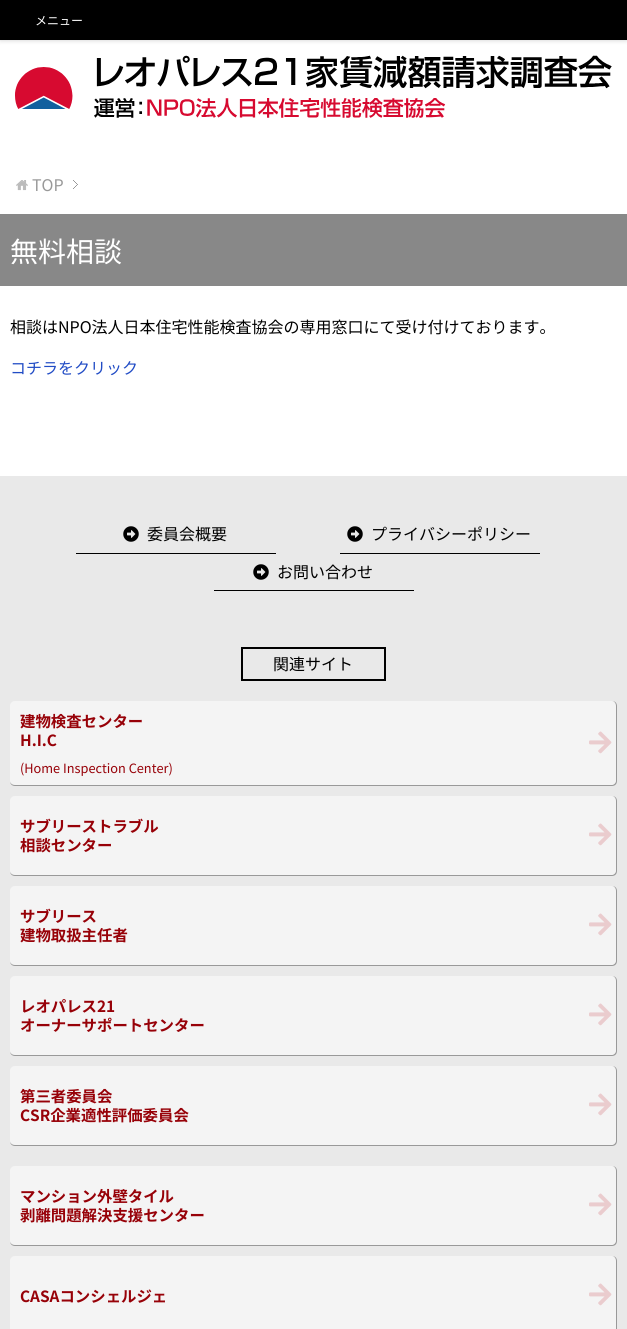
#include <cairo.h>
#include <math.h>
#include <stddef.h>


static void ink(cairo_t *ctx, unsigned color) {
    cairo_set_source_rgb(ctx, (color >> 16) / 255.0, (color >> 8 & 255) / 255.0, (color & 255) / 255.0);
}

static void round_path(cairo_t *ctx, double x, double y, double w, double h, double r) {
    cairo_new_sub_path(ctx);
    cairo_arc(ctx, x + w - r, y + h - r, r, 0, M_PI / 2);
    cairo_arc(ctx, x + r, y + h - r, r, M_PI / 2, M_PI);
    cairo_arc(ctx, x + r, y + r, r, M_PI, 1.5 * M_PI);
    cairo_arc(ctx, x + w - r, y + r, r, 1.5 * M_PI, 2 * M_PI);
    cairo_close_path(ctx);
}

static void blur_box(cairo_t *ctx, double x, double y, double w, double h, double r, double blur, double alpha) {
    cairo_push_group_with_content(ctx, CAIRO_CONTENT_ALPHA);
    cairo_set_operator(ctx, CAIRO_OPERATOR_SOURCE);
    for (int i = 15; i >= -15 && fmin(w, h) + blur * i / 3 > 0; i -= 2) {
        double e = blur * i / 6;
        cairo_set_source_rgba(ctx, 0, 0, 0, alpha * erfc((i - 1) / 8.5) / 2);
        round_path(ctx, x - e, y - e, w + 2 * e, h + 2 * e, fmax(0, fmin(r + e + blur * .6, fmin(w, h) / 2 + e)));
        cairo_fill(ctx);
    }
    cairo_pattern_t *soft = cairo_pop_group(ctx);
    cairo_mask(ctx, soft);
    cairo_pattern_destroy(soft);
}

static void paste(cairo_t *ctx, const char *path, double x, double y, double w, double h) {
    cairo_surface_t *image = cairo_image_surface_create_from_png(path);
    cairo_save(ctx);
    cairo_set_source_surface(ctx, image, x, y);
    cairo_rectangle(ctx, x, y, w, h);
    cairo_fill(ctx);
    cairo_restore(ctx);
    cairo_surface_destroy(image);
}

int main(void) {
    cairo_surface_t *surface = cairo_image_surface_create(CAIRO_FORMAT_RGB24, 627, 1329);
    cairo_t *ctx = cairo_create(surface);
    cairo_font_options_t *options = cairo_font_options_create();
    cairo_font_options_set_hint_metrics(options, CAIRO_HINT_METRICS_OFF);
    cairo_font_options_set_hint_style(options, CAIRO_HINT_STYLE_NONE);
    cairo_set_font_options(ctx, options);
    cairo_set_miter_limit(ctx, 4);
    ink(ctx, 0xFFFFFF);
    cairo_paint(ctx);
    ink(ctx, 0x000000);
    blur_box(ctx, 0, 0, 627, 40, 0, 2.5, 0.2);
    ink(ctx, 0x000000);
    cairo_rectangle(ctx, 0, 0, 627, 40);
    cairo_fill(ctx);
    cairo_select_font_face(ctx, "Noto Sans JP", CAIRO_FONT_SLANT_NORMAL, CAIRO_FONT_WEIGHT_NORMAL);
    cairo_set_font_size(ctx, 12);
    ink(ctx, 0xFFFFFF);
    cairo_move_to(ctx, 35, 25);
    cairo_show_text(ctx, "メニュー");
    paste(ctx, "media/1.png", 15, 55, 597, 63);
    paste(ctx, "media/2.png", 73, 180, 5, 9);
    paste(ctx, "media/3.png", 16, 180, 12, 11);
    cairo_set_font_size(ctx, 16);
    ink(ctx, 0x999999);
    cairo_move_to(ctx, 32, 191);
    cairo_show_text(ctx, "TOP");
    ink(ctx, 0x888888);
    cairo_rectangle(ctx, 0, 214, 627, 72);
    cairo_fill(ctx);
    cairo_set_font_size(ctx, 28);
    ink(ctx, 0xFFFFFF);
    cairo_move_to(ctx, 10, 262);
    cairo_show_text(ctx, "無料相談");
    cairo_set_font_size(ctx, 16);
    ink(ctx, 0x000000);
    cairo_move_to(ctx, 10, 333);
    cairo_show_text(ctx, "相談はNPO法人日本住宅性能検査協会の専用窓口にて受け付けております。");
    ink(ctx, 0x214CC5);
    cairo_move_to(ctx, 10, 374);
    cairo_show_text(ctx, "コチラをクリック");
    ink(ctx, 0xE9E9E9);
    cairo_rectangle(ctx, 0, 476, 627, 853);
    cairo_fill(ctx);
    ink(ctx, 0x000000);
    cairo_rectangle(ctx, 76, 553, 200, 1);
    cairo_fill(ctx);
    paste(ctx, "media/4.png", 123, 526, 16, 16);
    cairo_move_to(ctx, 147, 540);
    cairo_show_text(ctx, "委員会概要");
    cairo_rectangle(ctx, 340, 553, 200, 1);
    cairo_fill(ctx);
    paste(ctx, "media/4.png", 347, 526, 16, 16);
    cairo_move_to(ctx, 371, 540);
    cairo_show_text(ctx, "プライバシーポリシー");
    cairo_rectangle(ctx, 214, 590, 200, 1);
    cairo_fill(ctx);
    paste(ctx, "media/4.png", 253, 564, 16, 16);
    cairo_move_to(ctx, 277, 578);
    cairo_show_text(ctx, "お問い合わせ");
    cairo_rectangle(ctx, 242, 648, 143, 32);
    cairo_stroke(ctx);
    cairo_move_to(ctx, 273, 670);
    cairo_show_text(ctx, "関連サイト");
    ink(ctx, 0xF4F4F4);
    round_path(ctx, 10, 701, 607, 85, 5);
    cairo_fill(ctx);
    ink(ctx, 0x999999);
    cairo_set_fill_rule(ctx, CAIRO_FILL_RULE_EVEN_ODD);
    cairo_new_path(ctx);
    cairo_move_to(ctx, 15, 701);
    cairo_line_to(ctx, 612, 701);
    cairo_curve_to(ctx, 615, 701, 617, 703, 617, 706);
    cairo_line_to(ctx, 617, 781);
    cairo_curve_to(ctx, 617, 784, 615, 786, 612, 786);
    cairo_line_to(ctx, 15, 786);
    cairo_curve_to(ctx, 12, 786, 10, 784, 10, 781);
    cairo_line_to(ctx, 10, 706);
    cairo_curve_to(ctx, 10, 703, 12, 701, 15, 701);
    cairo_close_path(ctx);
    cairo_move_to(ctx, 15, 701);
    cairo_line_to(ctx, 612, 701);
    cairo_curve_to(ctx, 614, 701, 616, 703, 616, 706);
    cairo_line_to(ctx, 616, 781);
    cairo_curve_to(ctx, 616, 783, 614, 785, 612, 785);
    cairo_line_to(ctx, 15, 785);
    cairo_curve_to(ctx, 12, 785, 10, 783, 10, 781);
    cairo_line_to(ctx, 10, 706);
    cairo_curve_to(ctx, 10, 703, 12, 701, 15, 701);
    cairo_close_path(ctx);
    cairo_fill(ctx);
    cairo_select_font_face(ctx, "Noto Sans JP", CAIRO_FONT_SLANT_NORMAL, CAIRO_FONT_WEIGHT_BOLD);
    cairo_set_font_size(ctx, 15.4);
    ink(ctx, 0x970108);
    cairo_move_to(ctx, 20, 727);
    cairo_show_text(ctx, "建物検査センター");
    cairo_move_to(ctx, 20, 746);
    cairo_show_text(ctx, "H.I.C");
    paste(ctx, "media/5.png", 589, 731, 23, 23);
    cairo_select_font_face(ctx, "Noto Sans JP", CAIRO_FONT_SLANT_NORMAL, CAIRO_FONT_WEIGHT_NORMAL);
    cairo_set_font_size(ctx, 12.75);
    cairo_move_to(ctx, 20, 773);
    cairo_show_text(ctx, "(Home Inspection Center)");
    ink(ctx, 0xF4F4F4);
    round_path(ctx, 10, 796, 607, 80, 5);
    cairo_fill(ctx);
    ink(ctx, 0x999999);
    cairo_new_path(ctx);
    cairo_move_to(ctx, 15, 796);
    cairo_line_to(ctx, 612, 796);
    cairo_curve_to(ctx, 615, 796, 617, 798, 617, 801);
    cairo_line_to(ctx, 617, 871);
    cairo_curve_to(ctx, 617, 874, 615, 876, 612, 876);
    cairo_line_to(ctx, 15, 876);
    cairo_curve_to(ctx, 12, 876, 10, 874, 10, 871);
    cairo_line_to(ctx, 10, 801);
    cairo_curve_to(ctx, 10, 798, 12, 796, 15, 796);
    cairo_close_path(ctx);
    cairo_move_to(ctx, 15, 796);
    cairo_line_to(ctx, 612, 796);
    cairo_curve_to(ctx, 614, 796, 616, 798, 616, 801);
    cairo_line_to(ctx, 616, 871);
    cairo_curve_to(ctx, 616, 873, 614, 875, 612, 875);
    cairo_line_to(ctx, 15, 875);
    cairo_curve_to(ctx, 12, 875, 10, 873, 10, 871);
    cairo_line_to(ctx, 10, 801);
    cairo_curve_to(ctx, 10, 798, 12, 796, 15, 796);
    cairo_close_path(ctx);
    cairo_fill(ctx);
    cairo_select_font_face(ctx, "Noto Sans JP", CAIRO_FONT_SLANT_NORMAL, CAIRO_FONT_WEIGHT_BOLD);
    cairo_set_font_size(ctx, 15.4);
    ink(ctx, 0x970108);
    cairo_move_to(ctx, 20, 832);
    cairo_show_text(ctx, "サブリーストラブル");
    cairo_move_to(ctx, 20, 851);
    cairo_show_text(ctx, "相談センター");
    paste(ctx, "media/5.png", 589, 823, 23, 23);
    ink(ctx, 0xF4F4F4);
    round_path(ctx, 10, 886, 607, 80, 5);
    cairo_fill(ctx);
    ink(ctx, 0x999999);
    cairo_new_path(ctx);
    cairo_move_to(ctx, 15, 886);
    cairo_line_to(ctx, 612, 886);
    cairo_curve_to(ctx, 615, 886, 617, 888, 617, 891);
    cairo_line_to(ctx, 617, 961);
    cairo_curve_to(ctx, 617, 964, 615, 966, 612, 966);
    cairo_line_to(ctx, 15, 966);
    cairo_curve_to(ctx, 12, 966, 10, 964, 10, 961);
    cairo_line_to(ctx, 10, 891);
    cairo_curve_to(ctx, 10, 888, 12, 886, 15, 886);
    cairo_close_path(ctx);
    cairo_move_to(ctx, 15, 886);
    cairo_line_to(ctx, 612, 886);
    cairo_curve_to(ctx, 614, 886, 616, 888, 616, 891);
    cairo_line_to(ctx, 616, 961);
    cairo_curve_to(ctx, 616, 963, 614, 965, 612, 965);
    cairo_line_to(ctx, 15, 965);
    cairo_curve_to(ctx, 12, 965, 10, 963, 10, 961);
    cairo_line_to(ctx, 10, 891);
    cairo_curve_to(ctx, 10, 888, 12, 886, 15, 886);
    cairo_close_path(ctx);
    cairo_fill(ctx);
    ink(ctx, 0x970108);
    cairo_move_to(ctx, 20, 922);
    cairo_show_text(ctx, "サブリース");
    cairo_move_to(ctx, 20, 941);
    cairo_show_text(ctx, "建物取扱主任者");
    paste(ctx, "media/5.png", 589, 913, 23, 23);
    ink(ctx, 0xF4F4F4);
    round_path(ctx, 10, 976, 607, 80, 5);
    cairo_fill(ctx);
    ink(ctx, 0x999999);
    cairo_new_path(ctx);
    cairo_move_to(ctx, 15, 976);
    cairo_line_to(ctx, 612, 976);
    cairo_curve_to(ctx, 615, 976, 617, 978, 617, 981);
    cairo_line_to(ctx, 617, 1051);
    cairo_curve_to(ctx, 617, 1054, 615, 1056, 612, 1056);
    cairo_line_to(ctx, 15, 1056);
    cairo_curve_to(ctx, 12, 1056, 10, 1054, 10, 1051);
    cairo_line_to(ctx, 10, 981);
    cairo_curve_to(ctx, 10, 978, 12, 976, 15, 976);
    cairo_close_path(ctx);
    cairo_move_to(ctx, 15, 976);
    cairo_line_to(ctx, 612, 976);
    cairo_curve_to(ctx, 614, 976, 616, 978, 616, 981);
    cairo_line_to(ctx, 616, 1051);
    cairo_curve_to(ctx, 616, 1053, 614, 1055, 612, 1055);
    cairo_line_to(ctx, 15, 1055);
    cairo_curve_to(ctx, 12, 1055, 10, 1053, 10, 1051);
    cairo_line_to(ctx, 10, 981);
    cairo_curve_to(ctx, 10, 978, 12, 976, 15, 976);
    cairo_close_path(ctx);
    cairo_fill(ctx);
    ink(ctx, 0x970108);
    cairo_move_to(ctx, 20, 1012);
    cairo_show_text(ctx, "レオパレス21");
    cairo_move_to(ctx, 20, 1031);
    cairo_show_text(ctx, "オーナーサポートセンター");
    paste(ctx, "media/5.png", 589, 1003, 23, 23);
    ink(ctx, 0xF4F4F4);
    round_path(ctx, 10, 1066, 607, 80, 5);
    cairo_fill(ctx);
    ink(ctx, 0x999999);
    cairo_new_path(ctx);
    cairo_move_to(ctx, 15, 1066);
    cairo_line_to(ctx, 612, 1066);
    cairo_curve_to(ctx, 615, 1066, 617, 1068, 617, 1071);
    cairo_line_to(ctx, 617, 1141);
    cairo_curve_to(ctx, 617, 1144, 615, 1146, 612, 1146);
    cairo_line_to(ctx, 15, 1146);
    cairo_curve_to(ctx, 12, 1146, 10, 1144, 10, 1141);
    cairo_line_to(ctx, 10, 1071);
    cairo_curve_to(ctx, 10, 1068, 12, 1066, 15, 1066);
    cairo_close_path(ctx);
    cairo_move_to(ctx, 15, 1066);
    cairo_line_to(ctx, 612, 1066);
    cairo_curve_to(ctx, 614, 1066, 616, 1068, 616, 1071);
    cairo_line_to(ctx, 616, 1141);
    cairo_curve_to(ctx, 616, 1143, 614, 1145, 612, 1145);
    cairo_line_to(ctx, 15, 1145);
    cairo_curve_to(ctx, 12, 1145, 10, 1143, 10, 1141);
    cairo_line_to(ctx, 10, 1071);
    cairo_curve_to(ctx, 10, 1068, 12, 1066, 15, 1066);
    cairo_close_path(ctx);
    cairo_fill(ctx);
    ink(ctx, 0x970108);
    cairo_move_to(ctx, 20, 1102);
    cairo_show_text(ctx, "第三者委員会");
    cairo_move_to(ctx, 20, 1121);
    cairo_show_text(ctx, "CSR企業適性評価委員会");
    paste(ctx, "media/5.png", 589, 1093, 23, 23);
    ink(ctx, 0xF4F4F4);
    round_path(ctx, 10, 1166, 607, 80, 5);
    cairo_fill(ctx);
    ink(ctx, 0x999999);
    cairo_new_path(ctx);
    cairo_move_to(ctx, 15, 1166);
    cairo_line_to(ctx, 612, 1166);
    cairo_curve_to(ctx, 615, 1166, 617, 1168, 617, 1171);
    cairo_line_to(ctx, 617, 1241);
    cairo_curve_to(ctx, 617, 1244, 615, 1246, 612, 1246);
    cairo_line_to(ctx, 15, 1246);
    cairo_curve_to(ctx, 12, 1246, 10, 1244, 10, 1241);
    cairo_line_to(ctx, 10, 1171);
    cairo_curve_to(ctx, 10, 1168, 12, 1166, 15, 1166);
    cairo_close_path(ctx);
    cairo_move_to(ctx, 15, 1166);
    cairo_line_to(ctx, 612, 1166);
    cairo_curve_to(ctx, 614, 1166, 616, 1168, 616, 1171);
    cairo_line_to(ctx, 616, 1241);
    cairo_curve_to(ctx, 616, 1243, 614, 1245, 612, 1245);
    cairo_line_to(ctx, 15, 1245);
    cairo_curve_to(ctx, 12, 1245, 10, 1243, 10, 1241);
    cairo_line_to(ctx, 10, 1171);
    cairo_curve_to(ctx, 10, 1168, 12, 1166, 15, 1166);
    cairo_close_path(ctx);
    cairo_fill(ctx);
    ink(ctx, 0x970108);
    cairo_move_to(ctx, 20, 1202);
    cairo_show_text(ctx, "マンション外壁タイル");
    cairo_move_to(ctx, 20, 1221);
    cairo_show_text(ctx, "剥離問題解決支援センター");
    paste(ctx, "media/5.png", 589, 1193, 23, 23);
    ink(ctx, 0xF4F4F4);
    round_path(ctx, 10, 1256, 607, 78, 5);
    cairo_fill(ctx);
    ink(ctx, 0x999999);
    cairo_new_path(ctx);
    cairo_move_to(ctx, 15, 1256);
    cairo_line_to(ctx, 612, 1256);
    cairo_curve_to(ctx, 615, 1256, 617, 1258, 617, 1261);
    cairo_line_to(ctx, 617, 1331);
    cairo_curve_to(ctx, 617, 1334, 615, 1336, 612, 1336);
    cairo_line_to(ctx, 15, 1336);
    cairo_curve_to(ctx, 12, 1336, 10, 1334, 10, 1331);
    cairo_line_to(ctx, 10, 1261);
    cairo_curve_to(ctx, 10, 1258, 12, 1256, 15, 1256);
    cairo_close_path(ctx);
    cairo_move_to(ctx, 15, 1256);
    cairo_line_to(ctx, 612, 1256);
    cairo_curve_to(ctx, 614, 1256, 616, 1258, 616, 1261);
    cairo_line_to(ctx, 616, 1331);
    cairo_curve_to(ctx, 616, 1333, 614, 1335, 612, 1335);
    cairo_line_to(ctx, 15, 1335);
    cairo_curve_to(ctx, 12, 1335, 10, 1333, 10, 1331);
    cairo_line_to(ctx, 10, 1261);
    cairo_curve_to(ctx, 10, 1258, 12, 1256, 15, 1256);
    cairo_close_path(ctx);
    cairo_fill(ctx);
    ink(ctx, 0x970108);
    cairo_move_to(ctx, 20, 1302);
    cairo_show_text(ctx, "CASAコンシェルジェ");
    paste(ctx, "media/5.png", 589, 1283, 23, 23);
    cairo_surface_write_to_png(surface, "image.png");
    cairo_font_options_destroy(options);
    cairo_destroy(ctx);
    cairo_surface_destroy(surface);
    return 0;
}
